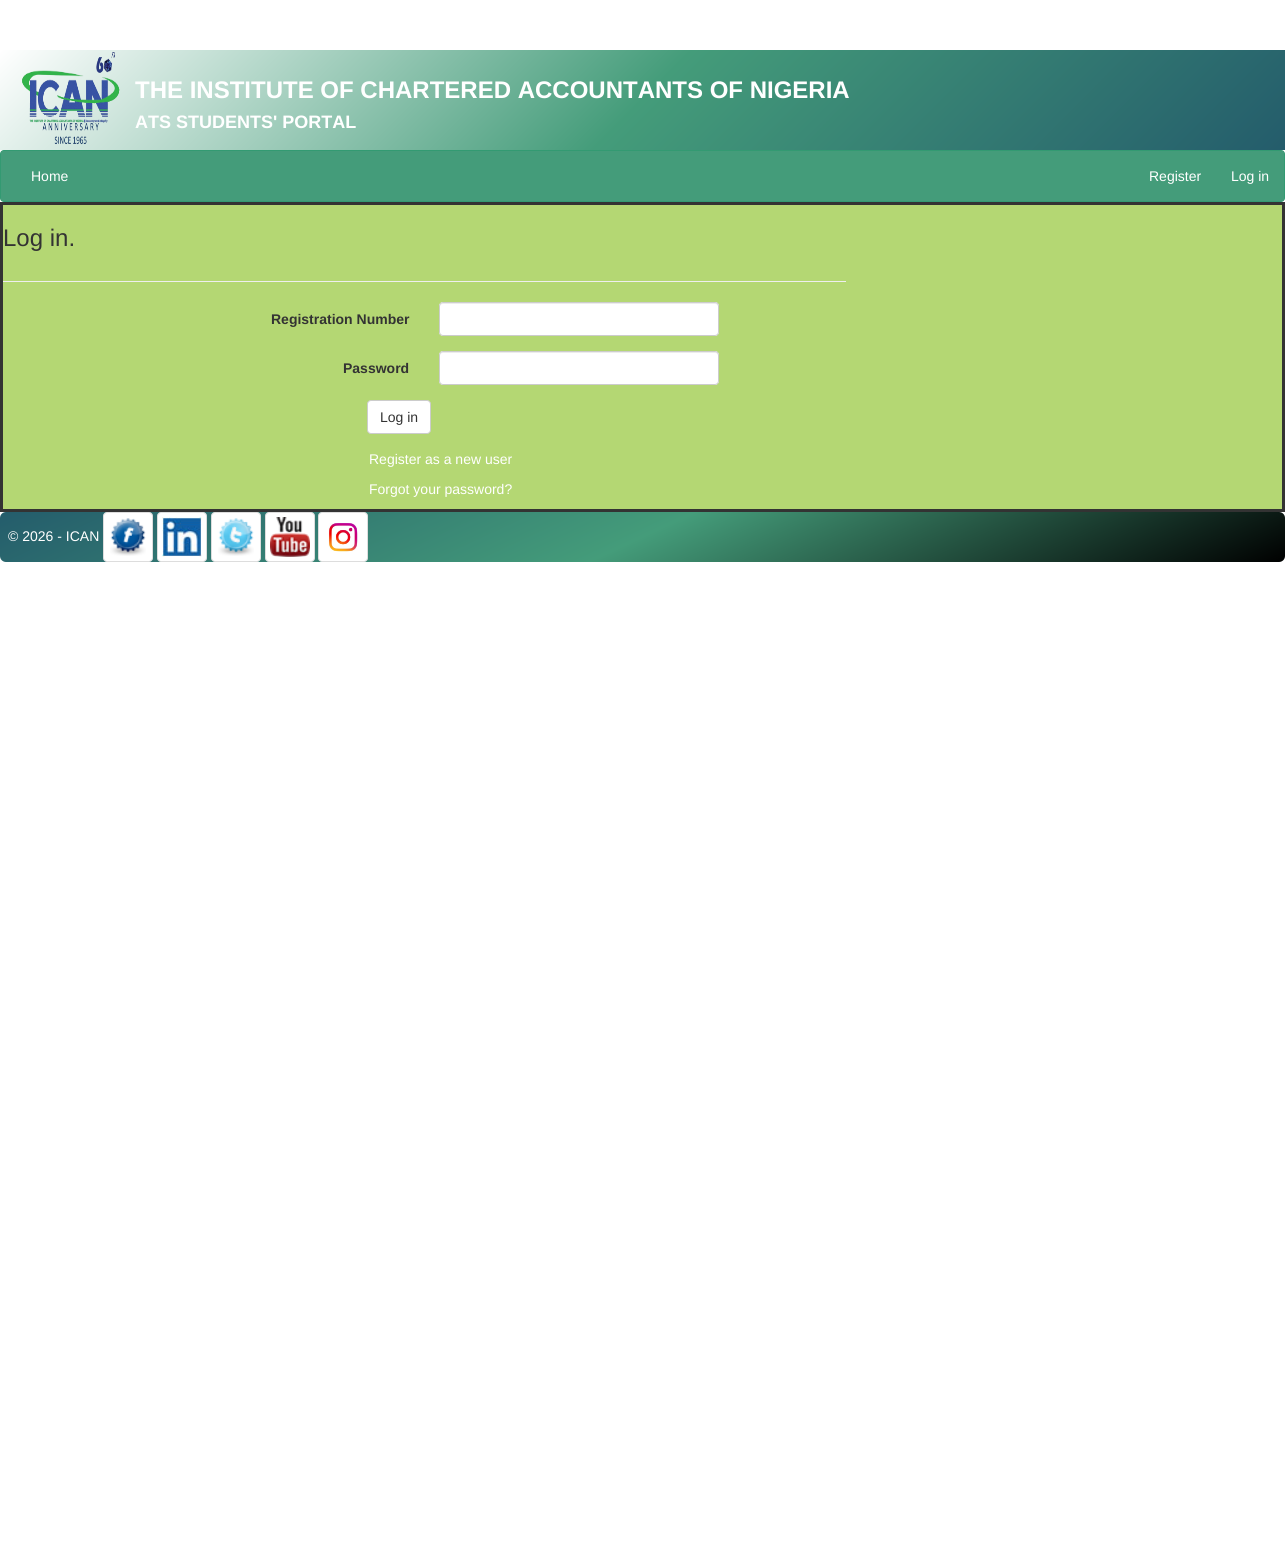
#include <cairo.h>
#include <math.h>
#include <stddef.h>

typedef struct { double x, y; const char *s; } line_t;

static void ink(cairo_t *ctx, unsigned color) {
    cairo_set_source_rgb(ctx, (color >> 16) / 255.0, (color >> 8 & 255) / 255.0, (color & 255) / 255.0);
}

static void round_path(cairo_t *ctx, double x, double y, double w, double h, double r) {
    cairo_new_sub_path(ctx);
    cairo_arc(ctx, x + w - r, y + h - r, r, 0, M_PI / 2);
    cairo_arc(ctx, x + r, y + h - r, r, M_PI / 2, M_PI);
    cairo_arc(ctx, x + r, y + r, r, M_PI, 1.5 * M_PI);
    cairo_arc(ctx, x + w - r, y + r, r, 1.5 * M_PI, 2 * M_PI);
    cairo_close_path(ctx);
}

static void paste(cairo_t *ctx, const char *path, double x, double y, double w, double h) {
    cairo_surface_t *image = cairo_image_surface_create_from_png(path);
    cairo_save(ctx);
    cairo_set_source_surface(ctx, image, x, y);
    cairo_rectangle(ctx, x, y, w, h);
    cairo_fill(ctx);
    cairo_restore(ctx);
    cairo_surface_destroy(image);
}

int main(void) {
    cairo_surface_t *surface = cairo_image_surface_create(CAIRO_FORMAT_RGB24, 1285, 1551);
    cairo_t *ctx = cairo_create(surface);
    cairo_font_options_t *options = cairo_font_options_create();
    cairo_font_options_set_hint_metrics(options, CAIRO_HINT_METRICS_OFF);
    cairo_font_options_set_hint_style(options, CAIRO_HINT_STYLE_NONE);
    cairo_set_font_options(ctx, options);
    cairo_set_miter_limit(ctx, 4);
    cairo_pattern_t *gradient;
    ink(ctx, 0xFFFFFF);
    cairo_paint(ctx);
    gradient = cairo_pattern_create_linear(296, -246, 989, 446);
    cairo_pattern_add_color_stop_rgba(gradient, 0, 1, 1, 1, 1);
    cairo_pattern_add_color_stop_rgba(gradient, 0.5, 0.267, 0.612, 0.478, 1);
    cairo_pattern_add_color_stop_rgba(gradient, 1, 0.141, 0.361, 0.42, 1);
    cairo_set_source(ctx, gradient);
    cairo_pattern_destroy(gradient);
    cairo_rectangle(ctx, 0, 50, 1285, 100);
    cairo_fill(ctx);
    paste(ctx, "media/1.png", 22, 52, 98, 93);
    cairo_select_font_face(ctx, "Liberation Sans", CAIRO_FONT_SLANT_NORMAL, CAIRO_FONT_WEIGHT_BOLD);
    cairo_set_font_size(ctx, 24);
    ink(ctx, 0xFFFFFF);
    cairo_move_to(ctx, 135, 98);
    cairo_show_text(ctx, "THE INSTITUTE OF CHARTERED ACCOUNTANTS OF NIGERIA");
    cairo_set_font_size(ctx, 18);
    cairo_move_to(ctx, 135, 128);
    cairo_show_text(ctx, "ATS STUDENTS' PORTAL");
    ink(ctx, 0x339A72);
    round_path(ctx, 0, 150, 1285, 52, 4);
    cairo_fill(ctx);
    ink(ctx, 0x449C7A);
    cairo_rectangle(ctx, 1, 151, 1283, 50);
    cairo_fill(ctx);
    cairo_select_font_face(ctx, "Liberation Sans", CAIRO_FONT_SLANT_NORMAL, CAIRO_FONT_WEIGHT_NORMAL);
    cairo_set_font_size(ctx, 14);
    ink(ctx, 0xFFFFFF);
    {
        static const line_t items[] = {
            {31, 181, "Home"},
            {1149, 181, "Register"},
            {1231, 181, "Log in"},
        };
        for (size_t i = 0; i < sizeof items / sizeof *items; i++) {
            cairo_move_to(ctx, items[i].x, items[i].y);
            cairo_show_text(ctx, items[i].s);
        }
    }
    ink(ctx, 0xB4D773);
    cairo_rectangle(ctx, 1.5, 203.5, 1282, 307);
    cairo_fill_preserve(ctx);
    ink(ctx, 0x333333);
    cairo_set_line_width(ctx, 3);
    cairo_stroke(ctx);
    cairo_set_font_size(ctx, 24);
    cairo_move_to(ctx, 3, 246);
    cairo_show_text(ctx, "Log in.");
    ink(ctx, 0xEEEEEE);
    cairo_rectangle(ctx, 3, 281, 843, 1);
    cairo_fill(ctx);
    cairo_select_font_face(ctx, "Liberation Sans", CAIRO_FONT_SLANT_NORMAL, CAIRO_FONT_WEIGHT_BOLD);
    cairo_set_font_size(ctx, 14);
    ink(ctx, 0x333333);
    cairo_move_to(ctx, 271, 324);
    cairo_show_text(ctx, "Registration Number");
    ink(ctx, 0xFFFFFF);
    round_path(ctx, 439, 302, 280, 34, 4);
    cairo_fill(ctx);
    ink(ctx, 0xECECEC);
    cairo_new_path(ctx);
    cairo_move_to(ctx, 443, 304);
    cairo_line_to(ctx, 715, 304);
    cairo_curve_to(ctx, 717, 304, 718, 305, 718, 307);
    cairo_line_to(ctx, 718, 306);
    cairo_curve_to(ctx, 718, 304, 717, 303, 715, 303);
    cairo_line_to(ctx, 443, 303);
    cairo_curve_to(ctx, 441, 303, 440, 304, 440, 306);
    cairo_line_to(ctx, 440, 307);
    cairo_curve_to(ctx, 440, 305, 441, 304, 443, 304);
    cairo_close_path(ctx);
    cairo_fill(ctx);
    round_path(ctx, 439.5, 302.5, 279, 33, 3.5);
    ink(ctx, 0xCCCCCC);
    cairo_set_line_width(ctx, 1);
    cairo_stroke(ctx);
    ink(ctx, 0x333333);
    cairo_move_to(ctx, 343, 373);
    cairo_show_text(ctx, "Password");
    ink(ctx, 0xFFFFFF);
    round_path(ctx, 439, 351, 280, 34, 4);
    cairo_fill(ctx);
    ink(ctx, 0xECECEC);
    cairo_new_path(ctx);
    cairo_move_to(ctx, 443, 353);
    cairo_line_to(ctx, 715, 353);
    cairo_curve_to(ctx, 717, 353, 718, 354, 718, 356);
    cairo_line_to(ctx, 718, 355);
    cairo_curve_to(ctx, 718, 353, 717, 352, 715, 352);
    cairo_line_to(ctx, 443, 352);
    cairo_curve_to(ctx, 441, 352, 440, 353, 440, 355);
    cairo_line_to(ctx, 440, 356);
    cairo_curve_to(ctx, 440, 354, 441, 353, 443, 353);
    cairo_close_path(ctx);
    cairo_fill(ctx);
    round_path(ctx, 439.5, 351.5, 279, 33, 3.5);
    ink(ctx, 0xCCCCCC);
    cairo_stroke(ctx);
    ink(ctx, 0xFFFFFF);
    round_path(ctx, 367.5, 400.5, 63, 33, 3.5);
    cairo_fill_preserve(ctx);
    ink(ctx, 0xCCCCCC);
    cairo_stroke(ctx);
    cairo_select_font_face(ctx, "Liberation Sans", CAIRO_FONT_SLANT_NORMAL, CAIRO_FONT_WEIGHT_NORMAL);
    ink(ctx, 0x333333);
    cairo_move_to(ctx, 380, 422);
    cairo_show_text(ctx, "Log in");
    ink(ctx, 0xFFFFFF);
    cairo_move_to(ctx, 369, 464);
    cairo_show_text(ctx, "Register as a new user");
    cairo_move_to(ctx, 369, 494);
    cairo_show_text(ctx, "Forgot your password?");
    gradient = cairo_pattern_create_linear(767, 804, 518, 270);
    cairo_pattern_add_color_stop_rgba(gradient, 0, 0, 0, 0, 1);
    cairo_pattern_add_color_stop_rgba(gradient, 0.5, 0.267, 0.612, 0.478, 1);
    cairo_pattern_add_color_stop_rgba(gradient, 1, 0.141, 0.361, 0.42, 1);
    cairo_set_source(ctx, gradient);
    cairo_pattern_destroy(gradient);
    round_path(ctx, 0, 512, 1285, 50, 6);
    cairo_fill(ctx);
    ink(ctx, 0xFFFFFF);
    cairo_move_to(ctx, 8, 541);
    cairo_show_text(ctx, "© 2026 - ICAN");
    round_path(ctx, 103.5, 512.5, 49, 49, 3.5);
    cairo_fill_preserve(ctx);
    ink(ctx, 0xDDDDDD);
    cairo_stroke(ctx);
    paste(ctx, "media/2.png", 110, 518, 36, 38);
    ink(ctx, 0xFFFFFF);
    round_path(ctx, 157.5, 512.5, 49, 49, 3.5);
    cairo_fill_preserve(ctx);
    ink(ctx, 0xDDDDDD);
    cairo_stroke(ctx);
    paste(ctx, "media/3.png", 162, 517, 40, 40);
    ink(ctx, 0xFFFFFF);
    round_path(ctx, 211.5, 512.5, 49, 49, 3.5);
    cairo_fill_preserve(ctx);
    ink(ctx, 0xDDDDDD);
    cairo_stroke(ctx);
    paste(ctx, "media/4.png", 218, 518, 36, 38);
    ink(ctx, 0xFFFFFF);
    round_path(ctx, 265.5, 512.5, 49, 49, 3.5);
    cairo_fill_preserve(ctx);
    ink(ctx, 0xDDDDDD);
    cairo_stroke(ctx);
    paste(ctx, "media/5.png", 270, 517, 40, 40);
    ink(ctx, 0xFFFFFF);
    round_path(ctx, 318.5, 512.5, 49, 49, 3.5);
    cairo_fill_preserve(ctx);
    ink(ctx, 0xDDDDDD);
    cairo_stroke(ctx);
    paste(ctx, "media/6.png", 328, 523, 30, 29);
    cairo_surface_write_to_png(surface, "image.png");
    cairo_font_options_destroy(options);
    cairo_destroy(ctx);
    cairo_surface_destroy(surface);
    return 0;
}
